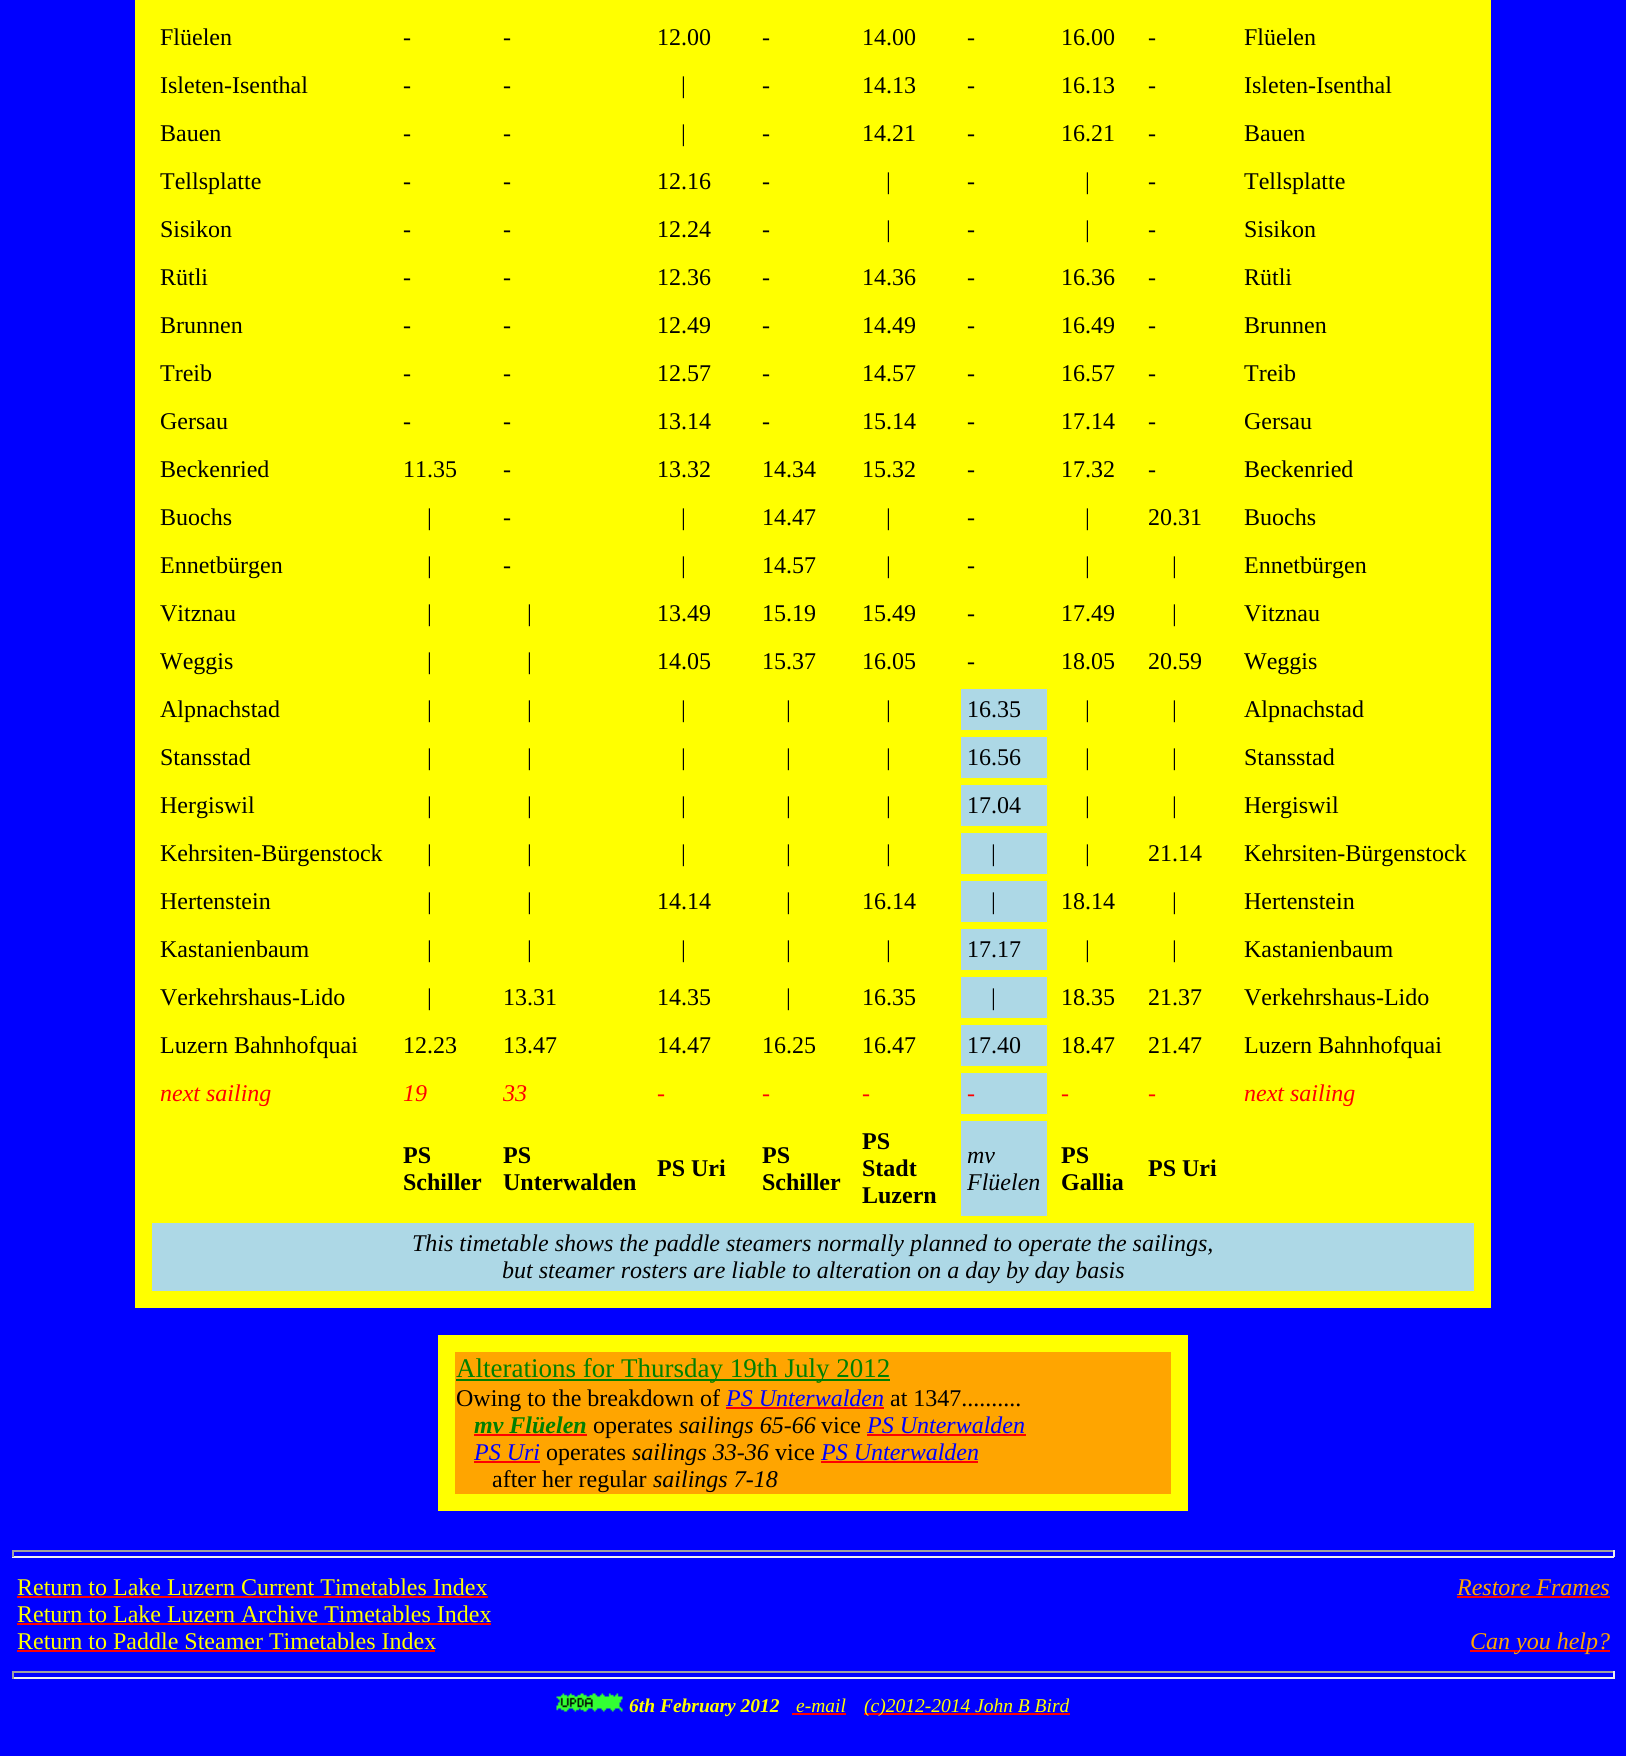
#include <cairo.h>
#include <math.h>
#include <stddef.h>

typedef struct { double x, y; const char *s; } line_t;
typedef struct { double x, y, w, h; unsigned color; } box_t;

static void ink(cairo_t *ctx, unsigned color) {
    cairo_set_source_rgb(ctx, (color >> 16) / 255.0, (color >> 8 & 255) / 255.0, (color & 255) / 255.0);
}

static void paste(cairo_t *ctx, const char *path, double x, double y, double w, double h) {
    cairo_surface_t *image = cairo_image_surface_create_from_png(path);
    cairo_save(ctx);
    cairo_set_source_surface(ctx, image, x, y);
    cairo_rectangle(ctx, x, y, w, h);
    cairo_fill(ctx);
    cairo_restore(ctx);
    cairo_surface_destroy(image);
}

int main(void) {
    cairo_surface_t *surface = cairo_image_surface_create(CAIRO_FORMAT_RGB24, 1626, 1756);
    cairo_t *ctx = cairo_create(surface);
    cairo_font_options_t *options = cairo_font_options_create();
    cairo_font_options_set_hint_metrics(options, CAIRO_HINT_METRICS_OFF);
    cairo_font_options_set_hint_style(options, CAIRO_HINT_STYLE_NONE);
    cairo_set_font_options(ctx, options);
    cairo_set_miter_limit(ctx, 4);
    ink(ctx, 0x0000FF);
    cairo_paint(ctx);
    ink(ctx, 0xFFFF00);
    cairo_rectangle(ctx, 135, 0, 1356, 1308);
    cairo_fill(ctx);
    cairo_select_font_face(ctx, "Liberation Serif", CAIRO_FONT_SLANT_NORMAL, CAIRO_FONT_WEIGHT_NORMAL);
    cairo_set_font_size(ctx, 24);
    ink(ctx, 0x000000);
    {
        static const line_t items[] = {
            {160, 45, "Flüelen"},
            {403, 45, "-"},
            {503, 45, "-"},
            {657, 45, "12.00"},
            {762, 45, "-"},
            {862, 45, "14.00"},
            {967, 45, "-"},
            {1061, 45, "16.00"},
            {1148, 45, "-"},
            {1244, 45, "Flüelen"},
            {160, 93, "Isleten-Isenthal"},
            {403, 93, "-"},
            {503, 93, "-"},
            {681, 93, "|"},
            {762, 93, "-"},
            {862, 93, "14.13"},
            {967, 93, "-"},
            {1061, 93, "16.13"},
            {1148, 93, "-"},
            {1244, 93, "Isleten-Isenthal"},
            {160, 141, "Bauen"},
            {403, 141, "-"},
            {503, 141, "-"},
            {681, 141, "|"},
            {762, 141, "-"},
            {862, 141, "14.21"},
            {967, 141, "-"},
            {1061, 141, "16.21"},
            {1148, 141, "-"},
            {1244, 141, "Bauen"},
            {160, 189, "Tellsplatte"},
            {403, 189, "-"},
            {503, 189, "-"},
            {657, 189, "12.16"},
            {762, 189, "-"},
            {886, 189, "|"},
            {967, 189, "-"},
            {1085, 189, "|"},
            {1148, 189, "-"},
            {1244, 189, "Tellsplatte"},
            {160, 237, "Sisikon"},
            {403, 237, "-"},
            {503, 237, "-"},
            {657, 237, "12.24"},
            {762, 237, "-"},
            {886, 237, "|"},
            {967, 237, "-"},
            {1085, 237, "|"},
            {1148, 237, "-"},
            {1244, 237, "Sisikon"},
            {160, 285, "Rütli"},
            {403, 285, "-"},
            {503, 285, "-"},
            {657, 285, "12.36"},
            {762, 285, "-"},
            {862, 285, "14.36"},
            {967, 285, "-"},
            {1061, 285, "16.36"},
            {1148, 285, "-"},
            {1244, 285, "Rütli"},
            {160, 333, "Brunnen"},
            {403, 333, "-"},
            {503, 333, "-"},
            {657, 333, "12.49"},
            {762, 333, "-"},
            {862, 333, "14.49"},
            {967, 333, "-"},
            {1061, 333, "16.49"},
            {1148, 333, "-"},
            {1244, 333, "Brunnen"},
            {160, 381, "Treib"},
            {403, 381, "-"},
            {503, 381, "-"},
            {657, 381, "12.57"},
            {762, 381, "-"},
            {862, 381, "14.57"},
            {967, 381, "-"},
            {1061, 381, "16.57"},
            {1148, 381, "-"},
            {1244, 381, "Treib"},
            {160, 429, "Gersau"},
            {403, 429, "-"},
            {503, 429, "-"},
            {657, 429, "13.14"},
            {762, 429, "-"},
            {862, 429, "15.14"},
            {967, 429, "-"},
            {1061, 429, "17.14"},
            {1148, 429, "-"},
            {1244, 429, "Gersau"},
            {160, 477, "Beckenried"},
            {403, 477, "11.35"},
            {503, 477, "-"},
            {657, 477, "13.32"},
            {762, 477, "14.34"},
            {862, 477, "15.32"},
            {967, 477, "-"},
            {1061, 477, "17.32"},
            {1148, 477, "-"},
            {1244, 477, "Beckenried"},
            {160, 525, "Buochs"},
            {427, 525, "|"},
            {503, 525, "-"},
            {681, 525, "|"},
            {762, 525, "14.47"},
            {886, 525, "|"},
            {967, 525, "-"},
            {1085, 525, "|"},
            {1148, 525, "20.31"},
            {1244, 525, "Buochs"},
            {160, 573, "Ennetbürgen"},
            {427, 573, "|"},
            {503, 573, "-"},
            {681, 573, "|"},
            {762, 573, "14.57"},
            {886, 573, "|"},
            {967, 573, "-"},
            {1085, 573, "|"},
            {1172, 573, "|"},
            {1244, 573, "Ennetbürgen"},
            {160, 621, "Vitznau"},
            {427, 621, "|"},
            {527, 621, "|"},
            {657, 621, "13.49"},
            {762, 621, "15.19"},
            {862, 621, "15.49"},
            {967, 621, "-"},
            {1061, 621, "17.49"},
            {1172, 621, "|"},
            {1244, 621, "Vitznau"},
            {160, 669, "Weggis"},
            {427, 669, "|"},
            {527, 669, "|"},
            {657, 669, "14.05"},
            {762, 669, "15.37"},
            {862, 669, "16.05"},
            {967, 669, "-"},
            {1061, 669, "18.05"},
            {1148, 669, "20.59"},
            {1244, 669, "Weggis"},
            {160, 717, "Alpnachstad"},
            {427, 717, "|"},
            {527, 717, "|"},
            {681, 717, "|"},
            {786, 717, "|"},
            {886, 717, "|"},
        };
        for (size_t i = 0; i < sizeof items / sizeof *items; i++) {
            cairo_move_to(ctx, items[i].x, items[i].y);
            cairo_show_text(ctx, items[i].s);
        }
    }
    ink(ctx, 0xADD8E6);
    cairo_rectangle(ctx, 961, 689, 86, 41);
    cairo_fill(ctx);
    ink(ctx, 0x000000);
    {
        static const line_t items[] = {
            {967, 717, "16.35"},
            {1085, 717, "|"},
            {1172, 717, "|"},
            {1244, 717, "Alpnachstad"},
            {160, 765, "Stansstad"},
            {427, 765, "|"},
            {527, 765, "|"},
            {681, 765, "|"},
            {786, 765, "|"},
            {886, 765, "|"},
        };
        for (size_t i = 0; i < sizeof items / sizeof *items; i++) {
            cairo_move_to(ctx, items[i].x, items[i].y);
            cairo_show_text(ctx, items[i].s);
        }
    }
    ink(ctx, 0xADD8E6);
    cairo_rectangle(ctx, 961, 737, 86, 41);
    cairo_fill(ctx);
    ink(ctx, 0x000000);
    {
        static const line_t items[] = {
            {967, 765, "16.56"},
            {1085, 765, "|"},
            {1172, 765, "|"},
            {1244, 765, "Stansstad"},
            {160, 813, "Hergiswil"},
            {427, 813, "|"},
            {527, 813, "|"},
            {681, 813, "|"},
            {786, 813, "|"},
            {886, 813, "|"},
        };
        for (size_t i = 0; i < sizeof items / sizeof *items; i++) {
            cairo_move_to(ctx, items[i].x, items[i].y);
            cairo_show_text(ctx, items[i].s);
        }
    }
    ink(ctx, 0xADD8E6);
    cairo_rectangle(ctx, 961, 785, 86, 41);
    cairo_fill(ctx);
    ink(ctx, 0x000000);
    {
        static const line_t items[] = {
            {967, 813, "17.04"},
            {1085, 813, "|"},
            {1172, 813, "|"},
            {1244, 813, "Hergiswil"},
            {160, 861, "Kehrsiten-Bürgenstock"},
            {427, 861, "|"},
            {527, 861, "|"},
            {681, 861, "|"},
            {786, 861, "|"},
            {886, 861, "|"},
        };
        for (size_t i = 0; i < sizeof items / sizeof *items; i++) {
            cairo_move_to(ctx, items[i].x, items[i].y);
            cairo_show_text(ctx, items[i].s);
        }
    }
    ink(ctx, 0xADD8E6);
    cairo_rectangle(ctx, 961, 833, 86, 41);
    cairo_fill(ctx);
    ink(ctx, 0x000000);
    {
        static const line_t items[] = {
            {991, 861, "|"},
            {1085, 861, "|"},
            {1148, 861, "21.14"},
            {1244, 861, "Kehrsiten-Bürgenstock"},
            {160, 909, "Hertenstein"},
            {427, 909, "|"},
            {527, 909, "|"},
            {657, 909, "14.14"},
            {786, 909, "|"},
            {862, 909, "16.14"},
        };
        for (size_t i = 0; i < sizeof items / sizeof *items; i++) {
            cairo_move_to(ctx, items[i].x, items[i].y);
            cairo_show_text(ctx, items[i].s);
        }
    }
    ink(ctx, 0xADD8E6);
    cairo_rectangle(ctx, 961, 881, 86, 41);
    cairo_fill(ctx);
    ink(ctx, 0x000000);
    {
        static const line_t items[] = {
            {991, 909, "|"},
            {1061, 909, "18.14"},
            {1172, 909, "|"},
            {1244, 909, "Hertenstein"},
            {160, 957, "Kastanienbaum"},
            {427, 957, "|"},
            {527, 957, "|"},
            {681, 957, "|"},
            {786, 957, "|"},
            {886, 957, "|"},
        };
        for (size_t i = 0; i < sizeof items / sizeof *items; i++) {
            cairo_move_to(ctx, items[i].x, items[i].y);
            cairo_show_text(ctx, items[i].s);
        }
    }
    ink(ctx, 0xADD8E6);
    cairo_rectangle(ctx, 961, 929, 86, 41);
    cairo_fill(ctx);
    ink(ctx, 0x000000);
    {
        static const line_t items[] = {
            {967, 957, "17.17"},
            {1085, 957, "|"},
            {1172, 957, "|"},
            {1244, 957, "Kastanienbaum"},
            {160, 1005, "Verkehrshaus-Lido"},
            {427, 1005, "|"},
            {503, 1005, "13.31"},
            {657, 1005, "14.35"},
            {786, 1005, "|"},
            {862, 1005, "16.35"},
        };
        for (size_t i = 0; i < sizeof items / sizeof *items; i++) {
            cairo_move_to(ctx, items[i].x, items[i].y);
            cairo_show_text(ctx, items[i].s);
        }
    }
    ink(ctx, 0xADD8E6);
    cairo_rectangle(ctx, 961, 977, 86, 41);
    cairo_fill(ctx);
    ink(ctx, 0x000000);
    {
        static const line_t items[] = {
            {991, 1005, "|"},
            {1061, 1005, "18.35"},
            {1148, 1005, "21.37"},
            {1244, 1005, "Verkehrshaus-Lido"},
            {160, 1053, "Luzern Bahnhofquai"},
            {403, 1053, "12.23"},
            {503, 1053, "13.47"},
            {657, 1053, "14.47"},
            {762, 1053, "16.25"},
            {862, 1053, "16.47"},
        };
        for (size_t i = 0; i < sizeof items / sizeof *items; i++) {
            cairo_move_to(ctx, items[i].x, items[i].y);
            cairo_show_text(ctx, items[i].s);
        }
    }
    ink(ctx, 0xADD8E6);
    cairo_rectangle(ctx, 961, 1025, 86, 41);
    cairo_fill(ctx);
    ink(ctx, 0x000000);
    {
        static const line_t items[] = {
            {967, 1053, "17.40"},
            {1061, 1053, "18.47"},
            {1148, 1053, "21.47"},
            {1244, 1053, "Luzern Bahnhofquai"},
        };
        for (size_t i = 0; i < sizeof items / sizeof *items; i++) {
            cairo_move_to(ctx, items[i].x, items[i].y);
            cairo_show_text(ctx, items[i].s);
        }
    }
    cairo_select_font_face(ctx, "Liberation Serif", CAIRO_FONT_SLANT_ITALIC, CAIRO_FONT_WEIGHT_NORMAL);
    ink(ctx, 0xFF0000);
    {
        static const line_t items[] = {
            {160, 1101, "next sailing"},
            {403, 1101, "19"},
            {503, 1101, "33"},
            {657, 1101, "-"},
            {762, 1101, "-"},
            {862, 1101, "-"},
        };
        for (size_t i = 0; i < sizeof items / sizeof *items; i++) {
            cairo_move_to(ctx, items[i].x, items[i].y);
            cairo_show_text(ctx, items[i].s);
        }
    }
    ink(ctx, 0xADD8E6);
    cairo_rectangle(ctx, 961, 1073, 86, 41);
    cairo_fill(ctx);
    ink(ctx, 0xFF0000);
    {
        static const line_t items[] = {
            {967, 1101, "-"},
            {1061, 1101, "-"},
            {1148, 1101, "-"},
            {1244, 1101, "next sailing"},
        };
        for (size_t i = 0; i < sizeof items / sizeof *items; i++) {
            cairo_move_to(ctx, items[i].x, items[i].y);
            cairo_show_text(ctx, items[i].s);
        }
    }
    cairo_select_font_face(ctx, "Liberation Serif", CAIRO_FONT_SLANT_NORMAL, CAIRO_FONT_WEIGHT_BOLD);
    ink(ctx, 0x000000);
    {
        static const line_t items[] = {
            {403, 1163, "PS"},
            {403, 1190, "Schiller"},
            {503, 1163, "PS"},
            {503, 1190, "Unterwalden"},
            {657, 1176, "PS Uri"},
            {762, 1163, "PS"},
            {762, 1190, "Schiller"},
            {862, 1149, "PS"},
            {862, 1176, "Stadt"},
            {862, 1203, "Luzern"},
        };
        for (size_t i = 0; i < sizeof items / sizeof *items; i++) {
            cairo_move_to(ctx, items[i].x, items[i].y);
            cairo_show_text(ctx, items[i].s);
        }
    }
    ink(ctx, 0xADD8E6);
    cairo_rectangle(ctx, 961, 1121, 86, 95);
    cairo_fill(ctx);
    cairo_select_font_face(ctx, "Liberation Serif", CAIRO_FONT_SLANT_ITALIC, CAIRO_FONT_WEIGHT_NORMAL);
    ink(ctx, 0x000000);
    cairo_move_to(ctx, 967, 1163);
    cairo_show_text(ctx, "mv");
    cairo_move_to(ctx, 967, 1190);
    cairo_show_text(ctx, "Flüelen");
    cairo_select_font_face(ctx, "Liberation Serif", CAIRO_FONT_SLANT_NORMAL, CAIRO_FONT_WEIGHT_BOLD);
    {
        static const line_t items[] = {
            {1061, 1163, "PS"},
            {1061, 1190, "Gallia"},
            {1148, 1176, "PS Uri"},
        };
        for (size_t i = 0; i < sizeof items / sizeof *items; i++) {
            cairo_move_to(ctx, items[i].x, items[i].y);
            cairo_show_text(ctx, items[i].s);
        }
    }
    ink(ctx, 0xADD8E6);
    cairo_rectangle(ctx, 152, 1223, 1322, 68);
    cairo_fill(ctx);
    cairo_select_font_face(ctx, "Liberation Serif", CAIRO_FONT_SLANT_ITALIC, CAIRO_FONT_WEIGHT_NORMAL);
    ink(ctx, 0x000000);
    cairo_move_to(ctx, 412, 1251);
    cairo_show_text(ctx, "This timetable shows the paddle steamers normally planned to operate the sailings,");
    cairo_move_to(ctx, 502, 1278);
    cairo_show_text(ctx, "but steamer rosters are liable to alteration on a day by day basis");
    {
        static const box_t items[] = {
            {438, 1335, 750, 176, 0xFFFF00},
            {455, 1352, 716, 142, 0xFFA500},
            {456, 1379, 434, 2, 0x008000},
        };
        for (size_t i = 0; i < sizeof items / sizeof *items; i++) {
            ink(ctx, items[i].color);
            cairo_rectangle(ctx, items[i].x, items[i].y, items[i].w, items[i].h);
            cairo_fill(ctx);
        }
    }
    cairo_select_font_face(ctx, "Liberation Serif", CAIRO_FONT_SLANT_NORMAL, CAIRO_FONT_WEIGHT_NORMAL);
    cairo_set_font_size(ctx, 27);
    cairo_move_to(ctx, 456, 1377);
    cairo_show_text(ctx, "Alterations for Thursday 19th July 2012");
    cairo_set_font_size(ctx, 24);
    ink(ctx, 0x000000);
    cairo_move_to(ctx, 456, 1406);
    cairo_show_text(ctx, "Owing to the breakdown of");
    cairo_select_font_face(ctx, "Liberation Serif", CAIRO_FONT_SLANT_ITALIC, CAIRO_FONT_WEIGHT_NORMAL);
    ink(ctx, 0x0000FF);
    cairo_move_to(ctx, 726, 1406);
    cairo_show_text(ctx, "PS Unterwalden");
    ink(ctx, 0xFF0000);
    cairo_rectangle(ctx, 726, 1407, 158, 2);
    cairo_fill(ctx);
    cairo_select_font_face(ctx, "Liberation Serif", CAIRO_FONT_SLANT_NORMAL, CAIRO_FONT_WEIGHT_NORMAL);
    ink(ctx, 0x000000);
    cairo_move_to(ctx, 890, 1406);
    cairo_show_text(ctx, "at 1347..........");
    cairo_select_font_face(ctx, "Liberation Serif", CAIRO_FONT_SLANT_ITALIC, CAIRO_FONT_WEIGHT_BOLD);
    ink(ctx, 0x008000);
    cairo_move_to(ctx, 474, 1433);
    cairo_show_text(ctx, "mv Flüelen");
    ink(ctx, 0xFF0000);
    cairo_rectangle(ctx, 474, 1434, 113, 2);
    cairo_fill(ctx);
    cairo_select_font_face(ctx, "Liberation Serif", CAIRO_FONT_SLANT_NORMAL, CAIRO_FONT_WEIGHT_NORMAL);
    ink(ctx, 0x000000);
    cairo_move_to(ctx, 593, 1433);
    cairo_show_text(ctx, "operates");
    cairo_select_font_face(ctx, "Liberation Serif", CAIRO_FONT_SLANT_ITALIC, CAIRO_FONT_WEIGHT_NORMAL);
    cairo_move_to(ctx, 679, 1433);
    cairo_show_text(ctx, "sailings 65-66");
    cairo_select_font_face(ctx, "Liberation Serif", CAIRO_FONT_SLANT_NORMAL, CAIRO_FONT_WEIGHT_NORMAL);
    cairo_move_to(ctx, 821, 1433);
    cairo_show_text(ctx, "vice");
    cairo_select_font_face(ctx, "Liberation Serif", CAIRO_FONT_SLANT_ITALIC, CAIRO_FONT_WEIGHT_NORMAL);
    ink(ctx, 0x0000FF);
    cairo_move_to(ctx, 867, 1433);
    cairo_show_text(ctx, "PS Unterwalden");
    ink(ctx, 0xFF0000);
    cairo_rectangle(ctx, 867, 1434, 159, 2);
    cairo_fill(ctx);
    ink(ctx, 0x0000FF);
    cairo_move_to(ctx, 474, 1460);
    cairo_show_text(ctx, "PS Uri");
    cairo_select_font_face(ctx, "Liberation Serif", CAIRO_FONT_SLANT_NORMAL, CAIRO_FONT_WEIGHT_NORMAL);
    ink(ctx, 0x000000);
    cairo_move_to(ctx, 546, 1460);
    cairo_show_text(ctx, "operates");
    ink(ctx, 0xFF0000);
    cairo_rectangle(ctx, 474, 1461, 66, 2);
    cairo_fill(ctx);
    cairo_select_font_face(ctx, "Liberation Serif", CAIRO_FONT_SLANT_ITALIC, CAIRO_FONT_WEIGHT_NORMAL);
    ink(ctx, 0x000000);
    cairo_move_to(ctx, 632, 1460);
    cairo_show_text(ctx, "sailings 33-36");
    cairo_select_font_face(ctx, "Liberation Serif", CAIRO_FONT_SLANT_NORMAL, CAIRO_FONT_WEIGHT_NORMAL);
    cairo_move_to(ctx, 775, 1460);
    cairo_show_text(ctx, "vice");
    cairo_select_font_face(ctx, "Liberation Serif", CAIRO_FONT_SLANT_ITALIC, CAIRO_FONT_WEIGHT_NORMAL);
    ink(ctx, 0x0000FF);
    cairo_move_to(ctx, 821, 1460);
    cairo_show_text(ctx, "PS Unterwalden");
    ink(ctx, 0xFF0000);
    cairo_rectangle(ctx, 821, 1461, 157, 2);
    cairo_fill(ctx);
    cairo_select_font_face(ctx, "Liberation Serif", CAIRO_FONT_SLANT_NORMAL, CAIRO_FONT_WEIGHT_NORMAL);
    ink(ctx, 0x000000);
    cairo_move_to(ctx, 492, 1487);
    cairo_show_text(ctx, "after her regular");
    cairo_select_font_face(ctx, "Liberation Serif", CAIRO_FONT_SLANT_ITALIC, CAIRO_FONT_WEIGHT_NORMAL);
    cairo_move_to(ctx, 653, 1487);
    cairo_show_text(ctx, "sailings 7-18");
    {
        static const box_t items[] = {
            {12, 1550, 1602, 2, 0x9F9F9F},
            {1613, 1550, 2, 7, 0xEEEEEE},
            {12, 1556, 1602, 2, 0xEEEEEE},
            {12, 1550, 2, 7, 0x9F9F9F},
        };
        for (size_t i = 0; i < sizeof items / sizeof *items; i++) {
            ink(ctx, items[i].color);
            cairo_rectangle(ctx, items[i].x, items[i].y, items[i].w, items[i].h);
            cairo_fill(ctx);
        }
    }
    cairo_select_font_face(ctx, "Liberation Serif", CAIRO_FONT_SLANT_NORMAL, CAIRO_FONT_WEIGHT_NORMAL);
    ink(ctx, 0xFFFF00);
    cairo_move_to(ctx, 17, 1595);
    cairo_show_text(ctx, "Return to Lake Luzern Current Timetables Index");
    ink(ctx, 0xFF0000);
    cairo_rectangle(ctx, 17, 1596, 471, 2);
    cairo_fill(ctx);
    ink(ctx, 0xFFFF00);
    cairo_move_to(ctx, 17, 1622);
    cairo_show_text(ctx, "Return to Lake Luzern Archive Timetables Index");
    ink(ctx, 0xFF0000);
    cairo_rectangle(ctx, 17, 1623, 474, 2);
    cairo_fill(ctx);
    ink(ctx, 0xFFFF00);
    cairo_move_to(ctx, 17, 1649);
    cairo_show_text(ctx, "Return to Paddle Steamer Timetables Index");
    ink(ctx, 0xFF0000);
    cairo_rectangle(ctx, 17, 1650, 418, 2);
    cairo_fill(ctx);
    cairo_select_font_face(ctx, "Liberation Serif", CAIRO_FONT_SLANT_ITALIC, CAIRO_FONT_WEIGHT_NORMAL);
    ink(ctx, 0xFFA500);
    cairo_move_to(ctx, 1457, 1595);
    cairo_show_text(ctx, "Restore Frames");
    ink(ctx, 0xFF0000);
    cairo_rectangle(ctx, 1457, 1596, 153, 2);
    cairo_fill(ctx);
    cairo_rectangle(ctx, 1470, 1650, 140, 2);
    cairo_fill(ctx);
    ink(ctx, 0xFFA500);
    cairo_move_to(ctx, 1470, 1649);
    cairo_show_text(ctx, "Can you help?");
    {
        static const box_t items[] = {
            {12, 1671, 1602, 2, 0x9F9F9F},
            {1613, 1671, 2, 8, 0xEEEEEE},
            {12, 1677, 1602, 2, 0xEEEEEE},
            {12, 1671, 2, 8, 0x9F9F9F},
        };
        for (size_t i = 0; i < sizeof items / sizeof *items; i++) {
            ink(ctx, items[i].color);
            cairo_rectangle(ctx, items[i].x, items[i].y, items[i].w, items[i].h);
            cairo_fill(ctx);
        }
    }
    paste(ctx, "media/1.png", 556, 1693, 67, 19);
    cairo_select_font_face(ctx, "Liberation Serif", CAIRO_FONT_SLANT_ITALIC, CAIRO_FONT_WEIGHT_BOLD);
    cairo_set_font_size(ctx, 19.5);
    ink(ctx, 0xFFFF00);
    cairo_move_to(ctx, 629, 1712);
    cairo_show_text(ctx, "6th February 2012");
    cairo_select_font_face(ctx, "Liberation Serif", CAIRO_FONT_SLANT_ITALIC, CAIRO_FONT_WEIGHT_NORMAL);
    cairo_move_to(ctx, 796, 1712);
    cairo_show_text(ctx, "e-mail");
    ink(ctx, 0xFF0000);
    cairo_rectangle(ctx, 792, 1713, 54, 2);
    cairo_fill(ctx);
    cairo_rectangle(ctx, 864, 1713, 206, 2);
    cairo_fill(ctx);
    ink(ctx, 0xFFFF00);
    cairo_move_to(ctx, 864, 1712);
    cairo_show_text(ctx, "(c)2012-2014 John B Bird");
    cairo_surface_write_to_png(surface, "image.png");
    cairo_font_options_destroy(options);
    cairo_destroy(ctx);
    cairo_surface_destroy(surface);
    return 0;
}
